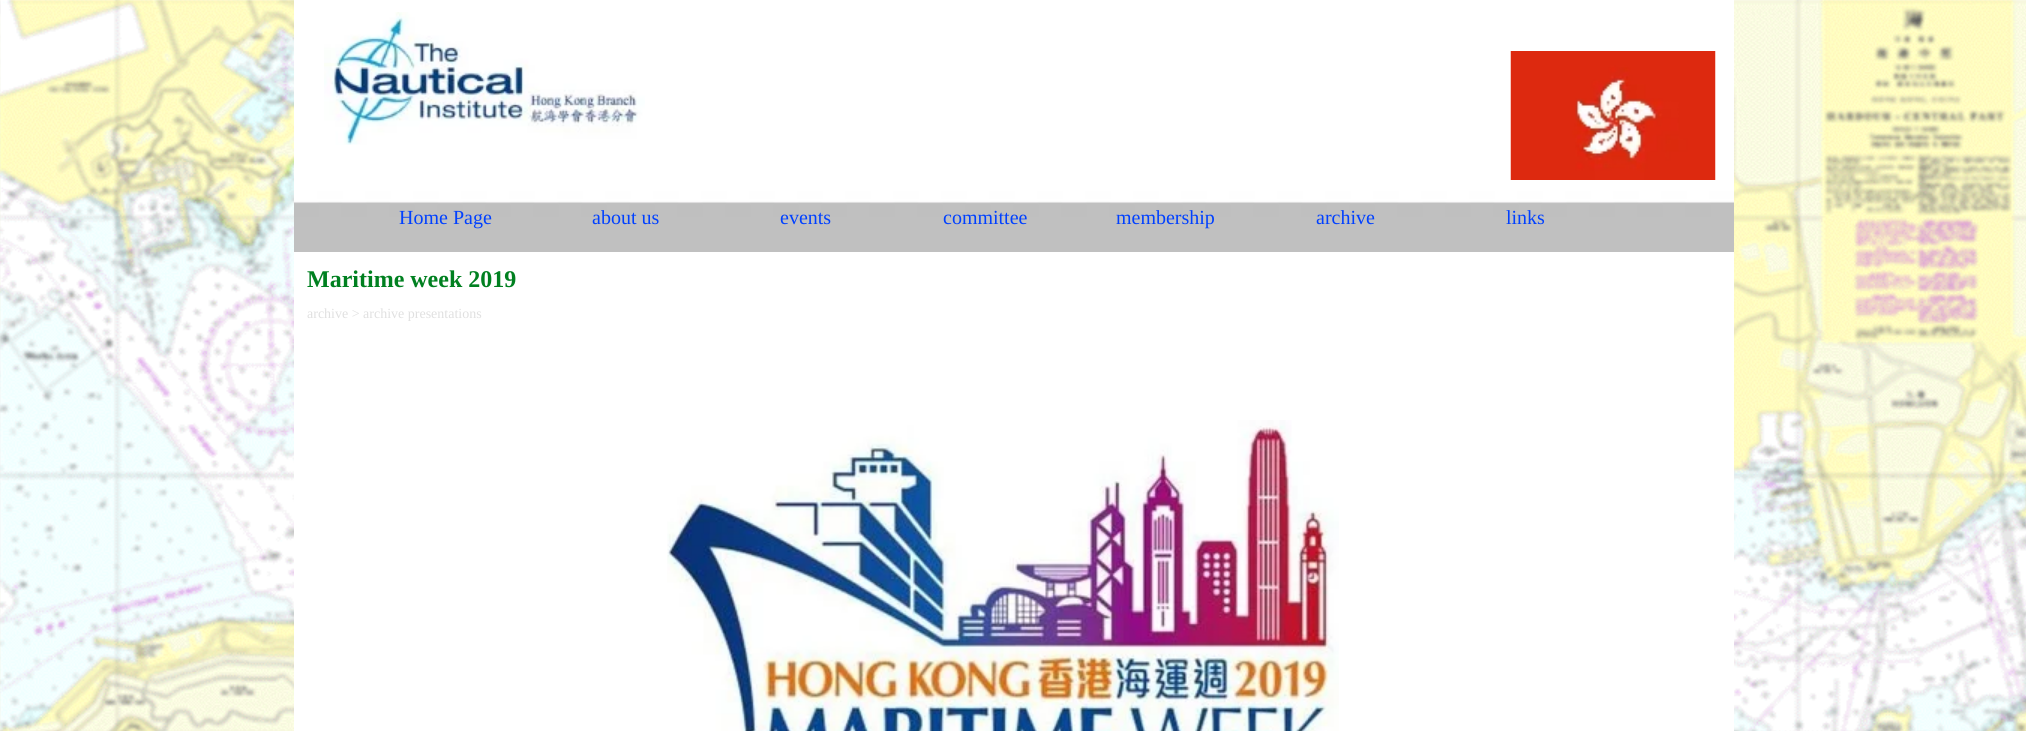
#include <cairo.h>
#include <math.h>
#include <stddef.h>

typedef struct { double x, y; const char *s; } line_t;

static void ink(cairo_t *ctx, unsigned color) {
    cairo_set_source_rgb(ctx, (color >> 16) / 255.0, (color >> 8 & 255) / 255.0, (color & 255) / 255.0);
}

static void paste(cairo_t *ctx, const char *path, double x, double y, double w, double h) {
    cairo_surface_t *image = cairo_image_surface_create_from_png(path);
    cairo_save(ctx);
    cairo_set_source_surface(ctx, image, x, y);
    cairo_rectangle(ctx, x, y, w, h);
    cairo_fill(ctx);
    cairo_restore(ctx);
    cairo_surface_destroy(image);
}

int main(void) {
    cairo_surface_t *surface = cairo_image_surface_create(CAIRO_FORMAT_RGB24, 2026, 731);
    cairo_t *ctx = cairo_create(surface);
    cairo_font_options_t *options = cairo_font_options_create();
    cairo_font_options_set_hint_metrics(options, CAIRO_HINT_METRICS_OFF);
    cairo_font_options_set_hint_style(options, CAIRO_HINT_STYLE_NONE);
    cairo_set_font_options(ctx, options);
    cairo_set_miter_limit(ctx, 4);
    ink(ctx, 0xFFFFFF);
    cairo_paint(ctx);
    paste(ctx, "media/1.png", 0, 0, 2026, 731);
    paste(ctx, "media/2.png", 294, 0, 1440, 252);
    paste(ctx, "media/3.png", 324, 12, 321, 133);
    paste(ctx, "media/4.png", 1510, 51, 206, 129);
    cairo_select_font_face(ctx, "Liberation Serif", CAIRO_FONT_SLANT_NORMAL, CAIRO_FONT_WEIGHT_NORMAL);
    cairo_set_font_size(ctx, 20);
    ink(ctx, 0x0040FF);
    {
        static const line_t items[] = {
            {399, 224, "Home Page"},
            {592, 224, "about us"},
            {780, 224, "events"},
            {943, 224, "committee"},
            {1116, 224, "membership"},
            {1316, 224, "archive"},
            {1506, 224, "links"},
        };
        for (size_t i = 0; i < sizeof items / sizeof *items; i++) {
            cairo_move_to(ctx, items[i].x, items[i].y);
            cairo_show_text(ctx, items[i].s);
        }
    }
    ink(ctx, 0xFFFFFF);
    cairo_rectangle(ctx, 294, 252, 1440, 479);
    cairo_fill(ctx);
    cairo_select_font_face(ctx, "Liberation Serif", CAIRO_FONT_SLANT_NORMAL, CAIRO_FONT_WEIGHT_BOLD);
    cairo_set_font_size(ctx, 24);
    ink(ctx, 0x008020);
    cairo_move_to(ctx, 307, 287);
    cairo_show_text(ctx, "Maritime week 2019");
    cairo_select_font_face(ctx, "Liberation Serif", CAIRO_FONT_SLANT_NORMAL, CAIRO_FONT_WEIGHT_NORMAL);
    cairo_set_font_size(ctx, 14);
    ink(ctx, 0xE0E0E0);
    cairo_move_to(ctx, 307, 318);
    cairo_show_text(ctx, "archive > archive presentations");
    paste(ctx, "media/5.png", 667, 420, 672, 311);
    cairo_surface_write_to_png(surface, "image.png");
    cairo_font_options_destroy(options);
    cairo_destroy(ctx);
    cairo_surface_destroy(surface);
    return 0;
}
